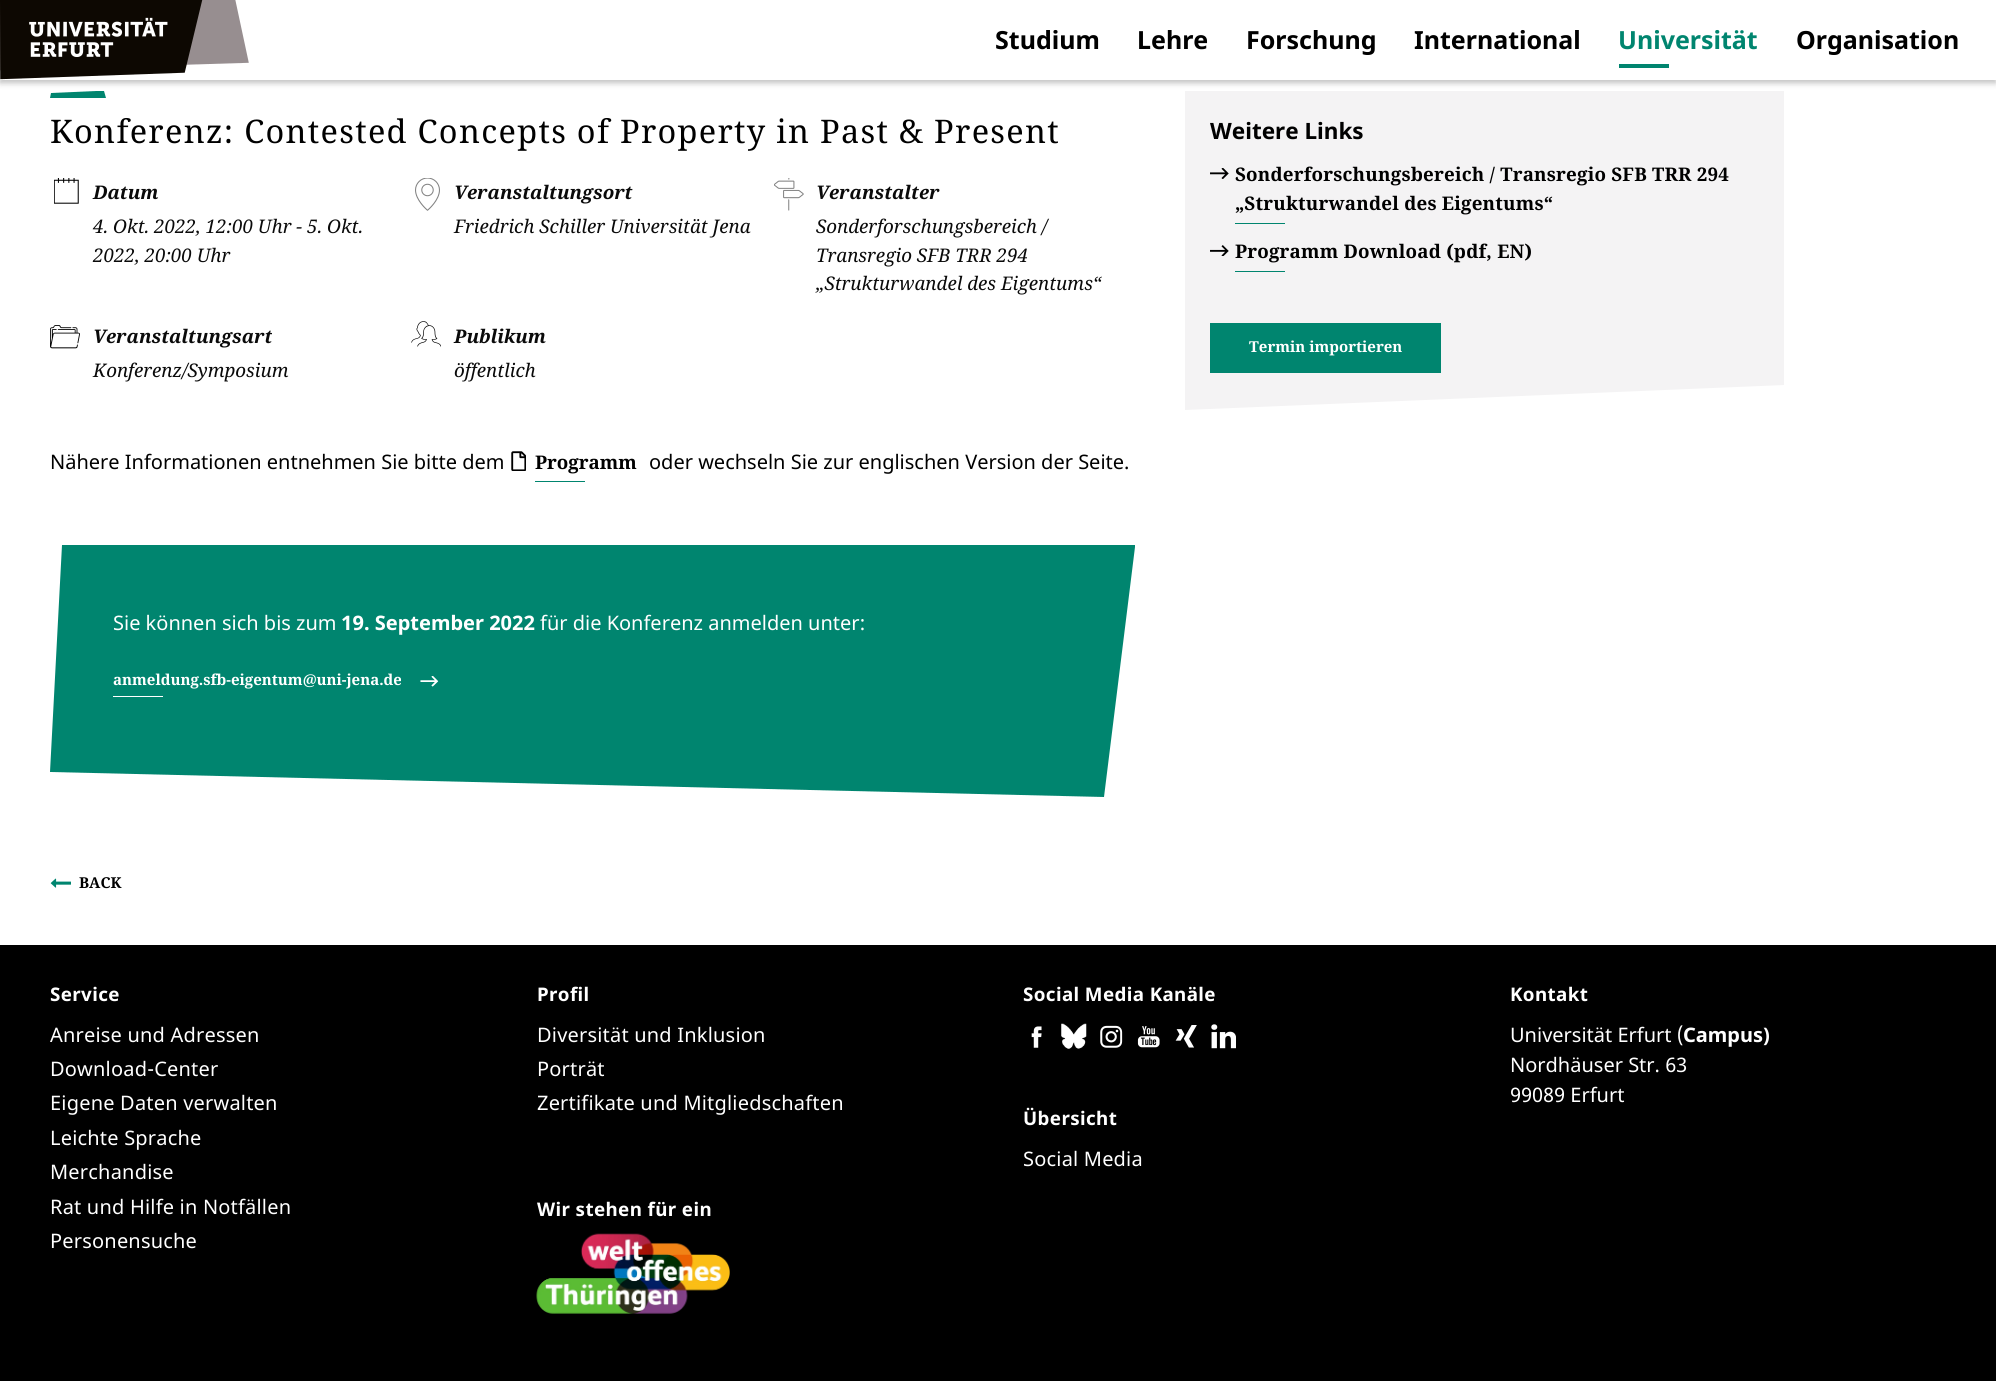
#include <cairo.h>
#include <math.h>
#include <stddef.h>

typedef struct { double x, y; const char *s; } line_t;

static void ink(cairo_t *ctx, unsigned color) {
    cairo_set_source_rgb(ctx, (color >> 16) / 255.0, (color >> 8 & 255) / 255.0, (color & 255) / 255.0);
}

static void write_spaced(cairo_t *ctx, double x, double y, const char *s, double letter, double word) {
    cairo_move_to(ctx, x, y);
    while (*s) {
        char ch[5] = {0};
        int n = 0;
        do ch[n++] = *s++; while ((*s & 0xC0) == 0x80);
        cairo_show_text(ctx, ch);
        cairo_rel_move_to(ctx, letter + word * (*ch == ' '), 0);
    }
}

static void round_path(cairo_t *ctx, double x, double y, double w, double h, double r) {
    cairo_new_sub_path(ctx);
    cairo_arc(ctx, x + w - r, y + h - r, r, 0, M_PI / 2);
    cairo_arc(ctx, x + r, y + h - r, r, M_PI / 2, M_PI);
    cairo_arc(ctx, x + r, y + r, r, M_PI, 1.5 * M_PI);
    cairo_arc(ctx, x + w - r, y + r, r, 1.5 * M_PI, 2 * M_PI);
    cairo_close_path(ctx);
}

static void blur_box(cairo_t *ctx, double x, double y, double w, double h, double r, double blur, double alpha) {
    cairo_push_group_with_content(ctx, CAIRO_CONTENT_ALPHA);
    cairo_set_operator(ctx, CAIRO_OPERATOR_SOURCE);
    for (int i = 15; i >= -15 && fmin(w, h) + blur * i / 3 > 0; i -= 2) {
        double e = blur * i / 6;
        cairo_set_source_rgba(ctx, 0, 0, 0, alpha * erfc((i - 1) / 8.5) / 2);
        round_path(ctx, x - e, y - e, w + 2 * e, h + 2 * e, fmax(0, fmin(r + e + blur * .6, fmin(w, h) / 2 + e)));
        cairo_fill(ctx);
    }
    cairo_pattern_t *soft = cairo_pop_group(ctx);
    cairo_mask(ctx, soft);
    cairo_pattern_destroy(soft);
}

static void paste(cairo_t *ctx, const char *path, double x, double y, double w, double h) {
    cairo_surface_t *image = cairo_image_surface_create_from_png(path);
    cairo_save(ctx);
    cairo_set_source_surface(ctx, image, x, y);
    cairo_rectangle(ctx, x, y, w, h);
    cairo_fill(ctx);
    cairo_restore(ctx);
    cairo_surface_destroy(image);
}

int main(void) {
    cairo_surface_t *surface = cairo_image_surface_create(CAIRO_FORMAT_RGB24, 1996, 1381);
    cairo_t *ctx = cairo_create(surface);
    cairo_font_options_t *options = cairo_font_options_create();
    cairo_font_options_set_hint_metrics(options, CAIRO_HINT_METRICS_OFF);
    cairo_font_options_set_hint_style(options, CAIRO_HINT_STYLE_NONE);
    cairo_set_font_options(ctx, options);
    cairo_set_miter_limit(ctx, 4);
    ink(ctx, 0xFFFFFF);
    cairo_paint(ctx);
    ink(ctx, 0x00856F);
    cairo_new_path(ctx);
    cairo_move_to(ctx, 51, 93);
    cairo_line_to(ctx, 50, 98);
    cairo_line_to(ctx, 106, 98);
    cairo_line_to(ctx, 104, 91);
    cairo_line_to(ctx, 96, 91);
    cairo_close_path(ctx);
    cairo_fill(ctx);
    ink(ctx, 0xF4F3F4);
    cairo_new_path(ctx);
    cairo_move_to(ctx, 1784, 385);
    cairo_line_to(ctx, 1185, 410);
    cairo_line_to(ctx, 1185, 91);
    cairo_line_to(ctx, 1784, 91);
    cairo_close_path(ctx);
    cairo_fill(ctx);
    ink(ctx, 0x000000);
    blur_box(ctx, 0, 3, 1996, 80, 0, 3, 0.25);
    ink(ctx, 0xFFFFFF);
    cairo_rectangle(ctx, 0, 0, 1996, 80);
    cairo_fill(ctx);
    paste(ctx, "media/1.png", 0, 0, 249, 80);
    cairo_select_font_face(ctx, "Noto Sans", CAIRO_FONT_SLANT_NORMAL, CAIRO_FONT_WEIGHT_BOLD);
    cairo_set_font_size(ctx, 25);
    ink(ctx, 0x000000);
    {
        static const line_t items[] = {
            {995, 49, "Studium"},
            {1137, 49, "Lehre"},
            {1246, 49, "Forschung"},
            {1414, 49, "International"},
        };
        for (size_t i = 0; i < sizeof items / sizeof *items; i++) {
            cairo_move_to(ctx, items[i].x, items[i].y);
            cairo_show_text(ctx, items[i].s);
        }
    }
    ink(ctx, 0x00856F);
    cairo_move_to(ctx, 1618, 49);
    cairo_show_text(ctx, "Universität");
    cairo_rectangle(ctx, 1619, 64, 50, 4);
    cairo_fill(ctx);
    ink(ctx, 0x000000);
    cairo_move_to(ctx, 1796, 49);
    cairo_show_text(ctx, "Organisation");
    cairo_select_font_face(ctx, "Noto Serif", CAIRO_FONT_SLANT_NORMAL, CAIRO_FONT_WEIGHT_NORMAL);
    cairo_set_font_size(ctx, 32.5);
    write_spaced(ctx, 50, 143, "Konferenz: Contested Concepts of Property in Past & Present", 1.3, 0);
    paste(ctx, "media/2.png", 54, 178, 25, 26);
    cairo_select_font_face(ctx, "Noto Serif", CAIRO_FONT_SLANT_ITALIC, CAIRO_FONT_WEIGHT_BOLD);
    cairo_set_font_size(ctx, 18.75);
    ink(ctx, 0x0A0A0A);
    cairo_move_to(ctx, 93, 199);
    cairo_show_text(ctx, "Datum");
    cairo_select_font_face(ctx, "Noto Serif", CAIRO_FONT_SLANT_ITALIC, CAIRO_FONT_WEIGHT_NORMAL);
    cairo_move_to(ctx, 93, 233);
    cairo_show_text(ctx, "4. Okt. 2022, 12:00 Uhr - 5. Okt.");
    cairo_move_to(ctx, 93, 262);
    cairo_show_text(ctx, "2022, 20:00 Uhr");
    paste(ctx, "media/3.png", 415, 178, 25, 33);
    cairo_select_font_face(ctx, "Noto Serif", CAIRO_FONT_SLANT_ITALIC, CAIRO_FONT_WEIGHT_BOLD);
    cairo_move_to(ctx, 454, 199);
    cairo_show_text(ctx, "Veranstaltungsort");
    cairo_select_font_face(ctx, "Noto Serif", CAIRO_FONT_SLANT_ITALIC, CAIRO_FONT_WEIGHT_NORMAL);
    cairo_move_to(ctx, 454, 233);
    cairo_show_text(ctx, "Friedrich Schiller Universität Jena");
    paste(ctx, "media/4.png", 774, 178, 30, 33);
    cairo_select_font_face(ctx, "Noto Serif", CAIRO_FONT_SLANT_ITALIC, CAIRO_FONT_WEIGHT_BOLD);
    cairo_move_to(ctx, 816, 199);
    cairo_show_text(ctx, "Veranstalter");
    cairo_select_font_face(ctx, "Noto Serif", CAIRO_FONT_SLANT_ITALIC, CAIRO_FONT_WEIGHT_NORMAL);
    {
        static const line_t items[] = {
            {816, 233, "Sonderforschungsbereich /"},
            {816, 262, "Transregio SFB TRR 294"},
            {816, 290, "„Strukturwandel des Eigentums“"},
        };
        for (size_t i = 0; i < sizeof items / sizeof *items; i++) {
            cairo_move_to(ctx, items[i].x, items[i].y);
            cairo_show_text(ctx, items[i].s);
        }
    }
    paste(ctx, "media/5.png", 50, 325, 30, 24);
    cairo_select_font_face(ctx, "Noto Serif", CAIRO_FONT_SLANT_ITALIC, CAIRO_FONT_WEIGHT_BOLD);
    cairo_move_to(ctx, 93, 343);
    cairo_show_text(ctx, "Veranstaltungsart");
    cairo_select_font_face(ctx, "Noto Serif", CAIRO_FONT_SLANT_ITALIC, CAIRO_FONT_WEIGHT_NORMAL);
    cairo_move_to(ctx, 93, 377);
    cairo_show_text(ctx, "Konferenz/Symposium");
    paste(ctx, "media/6.png", 411, 321, 30, 26);
    cairo_select_font_face(ctx, "Noto Serif", CAIRO_FONT_SLANT_ITALIC, CAIRO_FONT_WEIGHT_BOLD);
    cairo_move_to(ctx, 454, 343);
    cairo_show_text(ctx, "Publikum");
    cairo_select_font_face(ctx, "Noto Serif", CAIRO_FONT_SLANT_ITALIC, CAIRO_FONT_WEIGHT_NORMAL);
    cairo_move_to(ctx, 454, 377);
    cairo_show_text(ctx, "öffentlich");
    cairo_select_font_face(ctx, "Noto Sans", CAIRO_FONT_SLANT_NORMAL, CAIRO_FONT_WEIGHT_NORMAL);
    cairo_set_font_size(ctx, 20);
    ink(ctx, 0x000000);
    cairo_move_to(ctx, 50, 469);
    cairo_show_text(ctx, "Nähere Informationen entnehmen Sie bitte dem");
    paste(ctx, "media/7.png", 511, 451, 15, 20);
    cairo_select_font_face(ctx, "Noto Serif", CAIRO_FONT_SLANT_NORMAL, CAIRO_FONT_WEIGHT_BOLD);
    cairo_set_font_size(ctx, 18.75);
    cairo_move_to(ctx, 535, 469);
    cairo_show_text(ctx, "Programm");
    ink(ctx, 0x00856F);
    cairo_rectangle(ctx, 535, 481, 50, 1);
    cairo_fill(ctx);
    cairo_select_font_face(ctx, "Noto Sans", CAIRO_FONT_SLANT_NORMAL, CAIRO_FONT_WEIGHT_NORMAL);
    cairo_set_font_size(ctx, 20);
    ink(ctx, 0x000000);
    cairo_move_to(ctx, 649, 469);
    cairo_show_text(ctx, "oder wechseln Sie zur englischen Version der Seite.");
    ink(ctx, 0x00856F);
    cairo_new_path(ctx);
    cairo_move_to(ctx, 1135, 547);
    cairo_line_to(ctx, 1104, 797);
    cairo_line_to(ctx, 50, 772);
    cairo_line_to(ctx, 62, 545);
    cairo_line_to(ctx, 1135, 545);
    cairo_close_path(ctx);
    cairo_fill(ctx);
    ink(ctx, 0xFFFFFF);
    cairo_move_to(ctx, 113, 630);
    cairo_show_text(ctx, "Sie können sich bis zum");
    cairo_select_font_face(ctx, "Noto Sans", CAIRO_FONT_SLANT_NORMAL, CAIRO_FONT_WEIGHT_BOLD);
    cairo_move_to(ctx, 341, 630);
    cairo_show_text(ctx, "19. September 2022");
    cairo_select_font_face(ctx, "Noto Sans", CAIRO_FONT_SLANT_NORMAL, CAIRO_FONT_WEIGHT_NORMAL);
    cairo_move_to(ctx, 540, 630);
    cairo_show_text(ctx, "für die Konferenz anmelden unter:");
    cairo_select_font_face(ctx, "Noto Serif", CAIRO_FONT_SLANT_NORMAL, CAIRO_FONT_WEIGHT_BOLD);
    cairo_set_font_size(ctx, 15);
    cairo_move_to(ctx, 113, 685);
    cairo_show_text(ctx, "anmeldung.sfb-eigentum@uni-jena.de");
    paste(ctx, "media/8.png", 420, 676, 19, 11);
    cairo_rectangle(ctx, 113, 696, 50, 1);
    cairo_fill(ctx);
    cairo_select_font_face(ctx, "Noto Sans", CAIRO_FONT_SLANT_NORMAL, CAIRO_FONT_WEIGHT_BOLD);
    cairo_set_font_size(ctx, 22.5);
    ink(ctx, 0x000000);
    cairo_move_to(ctx, 1210, 139);
    cairo_show_text(ctx, "Weitere Links");
    paste(ctx, "media/9.png", 1210, 168, 19, 11);
    cairo_select_font_face(ctx, "Noto Serif", CAIRO_FONT_SLANT_NORMAL, CAIRO_FONT_WEIGHT_BOLD);
    cairo_set_font_size(ctx, 18.75);
    write_spaced(ctx, 1235, 181, "Sonderforschungsbereich / Transregio SFB TRR 294", 0.2, 0);
    write_spaced(ctx, 1235, 210, "„Strukturwandel des Eigentums“", 0.2, 0);
    ink(ctx, 0x00856F);
    cairo_rectangle(ctx, 1235, 223, 50, 1);
    cairo_fill(ctx);
    paste(ctx, "media/10.png", 1210, 245, 19, 11);
    ink(ctx, 0x000000);
    write_spaced(ctx, 1235, 258, "Programm Download (pdf, EN)", 0.2, 0);
    ink(ctx, 0x00856F);
    cairo_rectangle(ctx, 1235, 271, 50, 1);
    cairo_fill(ctx);
    cairo_rectangle(ctx, 1210, 323, 231, 50);
    cairo_fill(ctx);
    cairo_set_font_size(ctx, 15);
    ink(ctx, 0xFFFFFF);
    cairo_move_to(ctx, 1249, 352);
    cairo_show_text(ctx, "Termin importieren");
    paste(ctx, "media/11.png", 50, 878, 21, 10);
    ink(ctx, 0x000000);
    cairo_move_to(ctx, 79, 888);
    cairo_show_text(ctx, "BACK");
    cairo_rectangle(ctx, 0, 945, 1996, 436);
    cairo_fill(ctx);
    cairo_select_font_face(ctx, "Noto Sans", CAIRO_FONT_SLANT_NORMAL, CAIRO_FONT_WEIGHT_BOLD);
    cairo_set_font_size(ctx, 18.75);
    ink(ctx, 0xFFFFFF);
    write_spaced(ctx, 50, 1001, "Service", 0.4, 0);
    cairo_select_font_face(ctx, "Noto Sans", CAIRO_FONT_SLANT_NORMAL, CAIRO_FONT_WEIGHT_NORMAL);
    cairo_set_font_size(ctx, 20);
    {
        static const line_t items[] = {
            {50, 1042, "Anreise und Adressen"},
            {50, 1076, "Download-Center"},
            {50, 1110, "Eigene Daten verwalten"},
            {50, 1145, "Leichte Sprache"},
            {50, 1179, "Merchandise"},
            {50, 1214, "Rat und Hilfe in Notfällen"},
            {50, 1248, "Personensuche"},
        };
        for (size_t i = 0; i < sizeof items / sizeof *items; i++) {
            write_spaced(ctx, items[i].x, items[i].y, items[i].s, 0.2, 0);
        }
    }
    cairo_select_font_face(ctx, "Noto Sans", CAIRO_FONT_SLANT_NORMAL, CAIRO_FONT_WEIGHT_BOLD);
    cairo_set_font_size(ctx, 18.75);
    write_spaced(ctx, 537, 1001, "Profil", 0.4, 0);
    cairo_select_font_face(ctx, "Noto Sans", CAIRO_FONT_SLANT_NORMAL, CAIRO_FONT_WEIGHT_NORMAL);
    cairo_set_font_size(ctx, 20);
    {
        static const line_t items[] = {
            {537, 1042, "Diversität und Inklusion"},
            {537, 1076, "Porträt"},
            {537, 1110, "Zertifikate und Mitgliedschaften"},
        };
        for (size_t i = 0; i < sizeof items / sizeof *items; i++) {
            write_spaced(ctx, items[i].x, items[i].y, items[i].s, 0.2, 0);
        }
    }
    cairo_select_font_face(ctx, "Noto Sans", CAIRO_FONT_SLANT_NORMAL, CAIRO_FONT_WEIGHT_BOLD);
    cairo_set_font_size(ctx, 18.75);
    write_spaced(ctx, 537, 1216, "Wir stehen für ein", 0.4, 0);
    paste(ctx, "media/12.png", 536, 1233, 194, 81);
    write_spaced(ctx, 1023, 1001, "Social Media Kanäle", 0.4, 0);
    paste(ctx, "media/13.png", 1031, 1026, 11, 22);
    paste(ctx, "media/14.png", 1061, 1023, 26, 26);
    paste(ctx, "media/15.png", 1100, 1025, 23, 23);
    paste(ctx, "media/16.png", 1137, 1026, 23, 22);
    paste(ctx, "media/17.png", 1175, 1025, 22, 23);
    paste(ctx, "media/18.png", 1211, 1024, 25, 25);
    write_spaced(ctx, 1023, 1125, "Übersicht", 0.4, 0);
    cairo_select_font_face(ctx, "Noto Sans", CAIRO_FONT_SLANT_NORMAL, CAIRO_FONT_WEIGHT_NORMAL);
    cairo_set_font_size(ctx, 20);
    write_spaced(ctx, 1023, 1166, "Social Media", 0.2, 0);
    cairo_select_font_face(ctx, "Noto Sans", CAIRO_FONT_SLANT_NORMAL, CAIRO_FONT_WEIGHT_BOLD);
    cairo_set_font_size(ctx, 18.75);
    write_spaced(ctx, 1510, 1001, "Kontakt", 0.4, 0);
    cairo_select_font_face(ctx, "Noto Sans", CAIRO_FONT_SLANT_NORMAL, CAIRO_FONT_WEIGHT_NORMAL);
    cairo_set_font_size(ctx, 20);
    cairo_move_to(ctx, 1510, 1042);
    cairo_show_text(ctx, "Universität Erfurt (");
    cairo_select_font_face(ctx, "Noto Sans", CAIRO_FONT_SLANT_NORMAL, CAIRO_FONT_WEIGHT_BOLD);
    cairo_move_to(ctx, 1683, 1042);
    cairo_show_text(ctx, "Campus)");
    cairo_select_font_face(ctx, "Noto Sans", CAIRO_FONT_SLANT_NORMAL, CAIRO_FONT_WEIGHT_NORMAL);
    cairo_move_to(ctx, 1510, 1072);
    cairo_show_text(ctx, "Nordhäuser Str. 63");
    cairo_move_to(ctx, 1510, 1102);
    cairo_show_text(ctx, "99089 Erfurt");
    cairo_surface_write_to_png(surface, "image.png");
    cairo_font_options_destroy(options);
    cairo_destroy(ctx);
    cairo_surface_destroy(surface);
    return 0;
}
